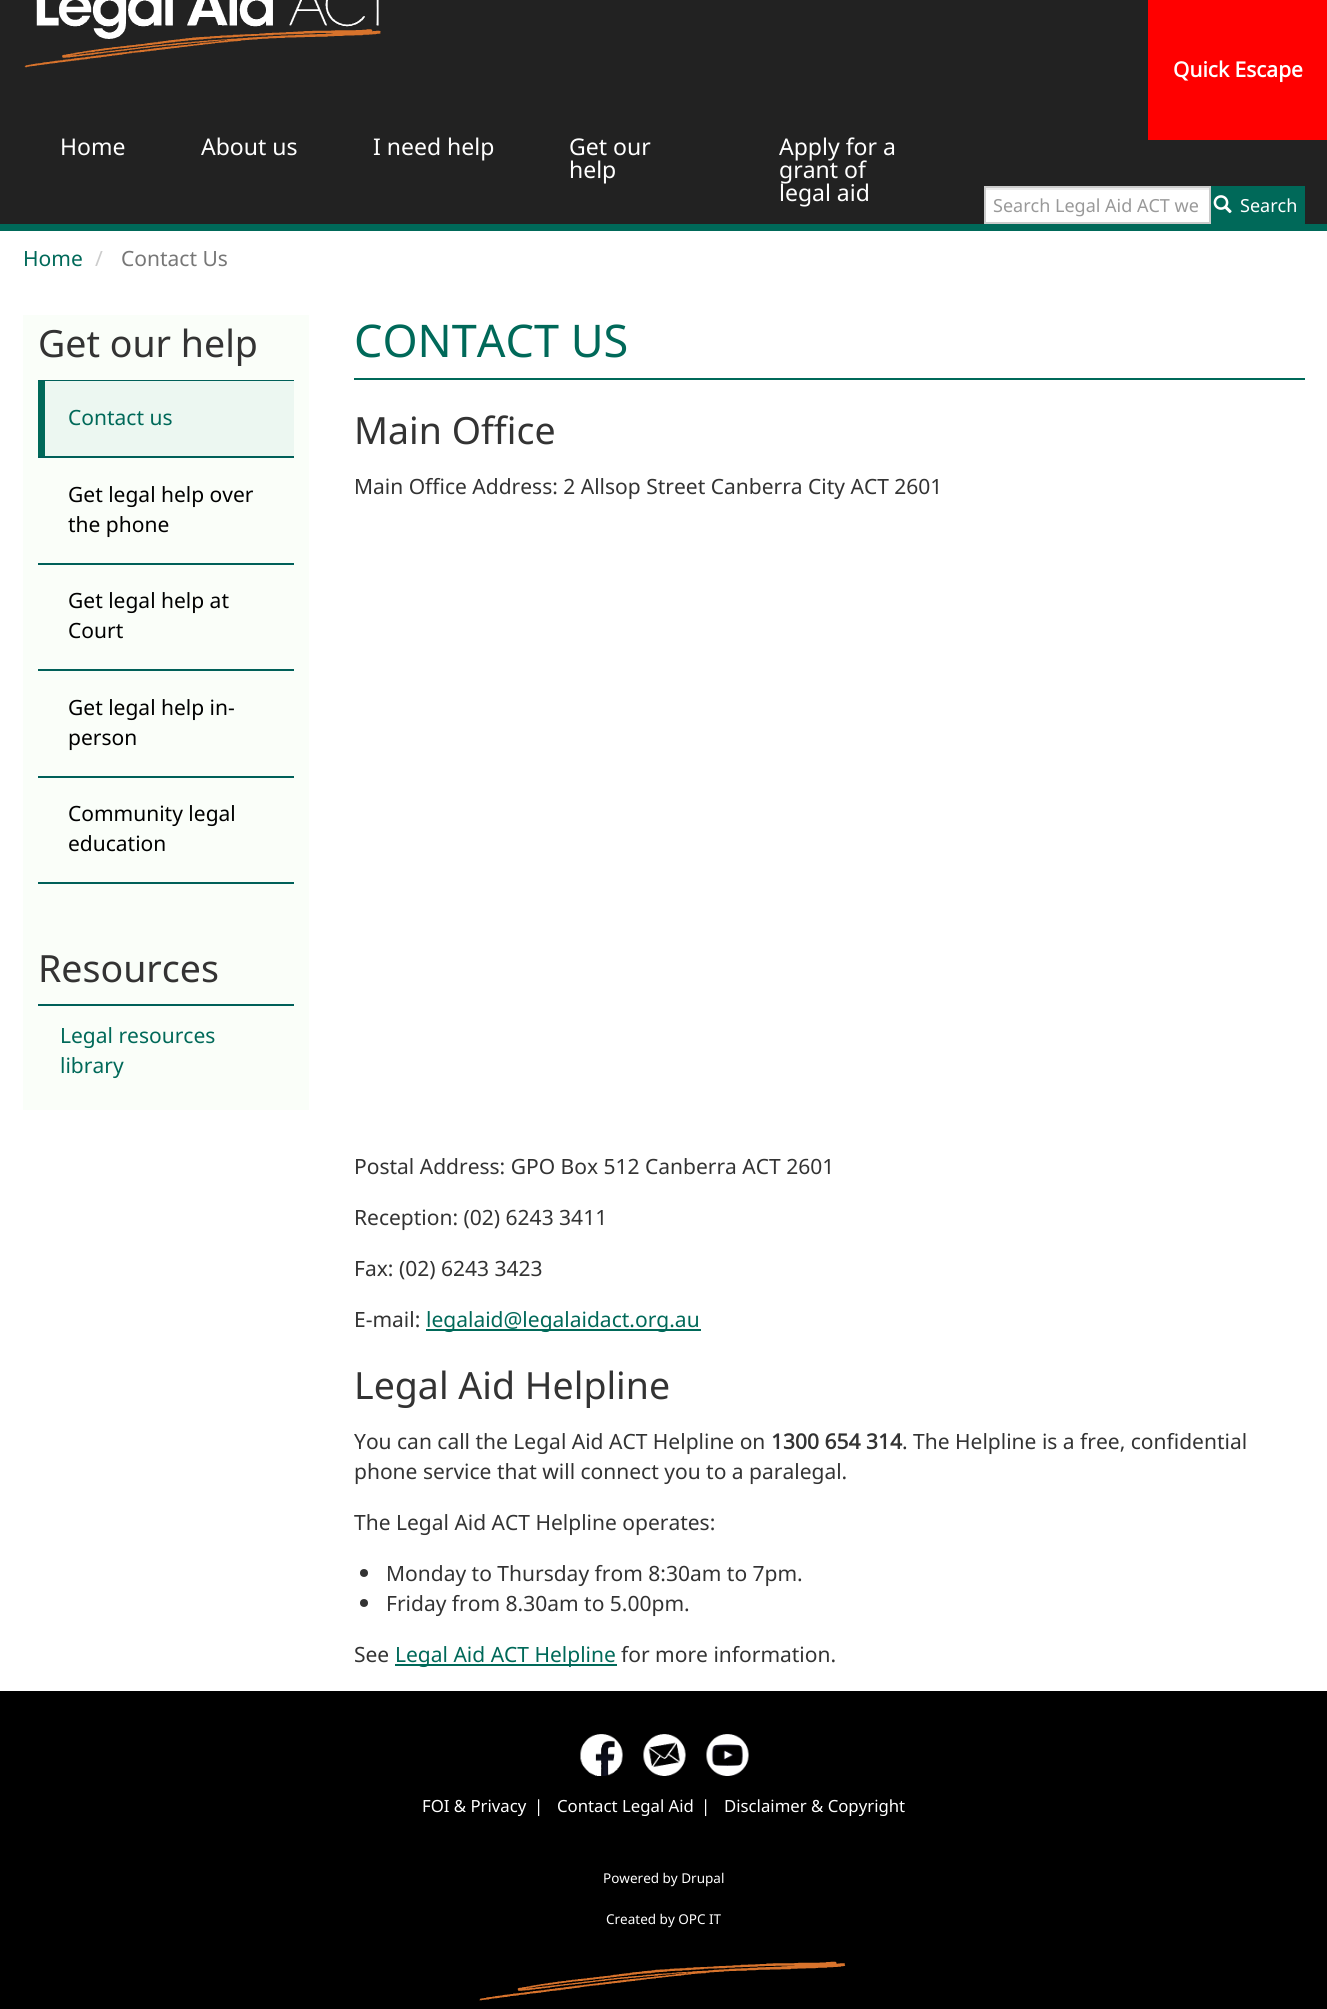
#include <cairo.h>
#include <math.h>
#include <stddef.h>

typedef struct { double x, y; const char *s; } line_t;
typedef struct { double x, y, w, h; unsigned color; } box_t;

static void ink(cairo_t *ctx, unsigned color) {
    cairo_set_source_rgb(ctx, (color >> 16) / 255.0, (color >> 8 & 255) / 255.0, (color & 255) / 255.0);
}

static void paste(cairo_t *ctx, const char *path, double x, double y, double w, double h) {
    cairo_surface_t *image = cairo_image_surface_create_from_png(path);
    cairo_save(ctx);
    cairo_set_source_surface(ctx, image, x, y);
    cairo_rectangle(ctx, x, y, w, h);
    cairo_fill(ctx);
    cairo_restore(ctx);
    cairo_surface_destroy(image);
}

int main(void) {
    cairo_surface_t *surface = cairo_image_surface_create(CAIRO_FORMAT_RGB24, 1327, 2009);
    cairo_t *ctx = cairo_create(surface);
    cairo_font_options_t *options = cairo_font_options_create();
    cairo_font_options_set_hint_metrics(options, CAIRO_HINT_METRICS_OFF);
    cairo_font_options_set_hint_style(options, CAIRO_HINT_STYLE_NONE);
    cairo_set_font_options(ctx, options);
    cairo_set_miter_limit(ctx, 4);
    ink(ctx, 0xFFFFFF);
    cairo_paint(ctx);
    ink(ctx, 0x222222);
    cairo_rectangle(ctx, 0, 0, 1327, 224);
    cairo_fill(ctx);
    ink(ctx, 0x006959);
    cairo_rectangle(ctx, 0, 224, 1327, 7);
    cairo_fill(ctx);
    paste(ctx, "media/1.png", 24, 0, 357, 68);
    ink(ctx, 0xFF0000);
    cairo_rectangle(ctx, 1148, 0, 179, 140);
    cairo_fill(ctx);
    cairo_select_font_face(ctx, "Noto Sans", CAIRO_FONT_SLANT_NORMAL, CAIRO_FONT_WEIGHT_BOLD);
    cairo_set_font_size(ctx, 21);
    ink(ctx, 0xFFFFFF);
    cairo_move_to(ctx, 1173, 77);
    cairo_show_text(ctx, "Quick Escape");
    cairo_select_font_face(ctx, "Noto Sans", CAIRO_FONT_SLANT_NORMAL, CAIRO_FONT_WEIGHT_NORMAL);
    cairo_set_font_size(ctx, 23);
    {
        static const line_t items[] = {
            {60, 155, "Home"},
            {201, 155, "About us"},
            {373, 155, "I need help"},
            {569, 155, "Get our"},
            {569, 178, "help"},
            {779, 155, "Apply for a"},
            {779, 178, "grant of"},
            {779, 201, "legal aid"},
        };
        for (size_t i = 0; i < sizeof items / sizeof *items; i++) {
            cairo_move_to(ctx, items[i].x, items[i].y);
            cairo_show_text(ctx, items[i].s);
        }
    }
    cairo_rectangle(ctx, 986, 190, 223, 32);
    cairo_fill(ctx);
    ink(ctx, 0xECECEC);
    cairo_rectangle(ctx, 986, 188, 223, 2);
    cairo_fill(ctx);
    cairo_rectangle(ctx, 985, 187, 225, 36);
    ink(ctx, 0xCCCCCC);
    cairo_stroke(ctx);
    cairo_set_font_size(ctx, 18);
    ink(ctx, 0x999999);
    cairo_move_to(ctx, 993, 212);
    cairo_show_text(ctx, "Search Legal Aid ACT we");
    ink(ctx, 0x006959);
    cairo_rectangle(ctx, 1211, 186, 94, 38);
    cairo_fill(ctx);
    paste(ctx, "media/2.png", 1213, 195, 19, 19);
    ink(ctx, 0xFFFFFF);
    cairo_move_to(ctx, 1240, 212);
    cairo_show_text(ctx, "Search");
    cairo_set_font_size(ctx, 21);
    ink(ctx, 0x006959);
    cairo_move_to(ctx, 23, 266);
    cairo_show_text(ctx, "Home");
    ink(ctx, 0xCCCCCC);
    cairo_move_to(ctx, 95, 266);
    cairo_show_text(ctx, "/");
    ink(ctx, 0x777777);
    cairo_move_to(ctx, 121, 266);
    cairo_show_text(ctx, "Contact Us");
    ink(ctx, 0xFAFEF9);
    cairo_rectangle(ctx, 23, 315, 286, 795);
    cairo_fill(ctx);
    ink(ctx, 0x006059);
    cairo_rectangle(ctx, 38, 380, 256, 1);
    cairo_fill(ctx);
    cairo_set_font_size(ctx, 37.5);
    ink(ctx, 0x333333);
    cairo_move_to(ctx, 38, 357);
    cairo_show_text(ctx, "Get our help");
    {
        static const box_t items[] = {
            {38, 456, 256, 2, 0x006059},
            {45, 381, 249, 75, 0xECF7F1},
            {38, 381, 7, 75, 0x006959},
        };
        for (size_t i = 0; i < sizeof items / sizeof *items; i++) {
            ink(ctx, items[i].color);
            cairo_rectangle(ctx, items[i].x, items[i].y, items[i].w, items[i].h);
            cairo_fill(ctx);
        }
    }
    cairo_set_font_size(ctx, 21);
    cairo_move_to(ctx, 68, 425);
    cairo_show_text(ctx, "Contact us");
    ink(ctx, 0x006059);
    cairo_rectangle(ctx, 38, 563, 256, 2);
    cairo_fill(ctx);
    ink(ctx, 0x000000);
    cairo_move_to(ctx, 68, 502);
    cairo_show_text(ctx, "Get legal help over");
    cairo_move_to(ctx, 68, 532);
    cairo_show_text(ctx, "the phone");
    ink(ctx, 0x006059);
    cairo_rectangle(ctx, 38, 669, 256, 2);
    cairo_fill(ctx);
    ink(ctx, 0x000000);
    cairo_move_to(ctx, 68, 608);
    cairo_show_text(ctx, "Get legal help at");
    cairo_move_to(ctx, 68, 638);
    cairo_show_text(ctx, "Court");
    ink(ctx, 0x006059);
    cairo_rectangle(ctx, 38, 776, 256, 2);
    cairo_fill(ctx);
    ink(ctx, 0x000000);
    cairo_move_to(ctx, 68, 715);
    cairo_show_text(ctx, "Get legal help in-");
    cairo_move_to(ctx, 68, 745);
    cairo_show_text(ctx, "person");
    ink(ctx, 0x006059);
    cairo_rectangle(ctx, 38, 882, 256, 2);
    cairo_fill(ctx);
    ink(ctx, 0x000000);
    cairo_move_to(ctx, 68, 821);
    cairo_show_text(ctx, "Community legal");
    cairo_move_to(ctx, 68, 851);
    cairo_show_text(ctx, "education");
    ink(ctx, 0x006059);
    cairo_rectangle(ctx, 38, 1004, 256, 2);
    cairo_fill(ctx);
    cairo_set_font_size(ctx, 37.5);
    ink(ctx, 0x333333);
    cairo_move_to(ctx, 38, 982);
    cairo_show_text(ctx, "Resources");
    cairo_set_font_size(ctx, 21);
    ink(ctx, 0x006959);
    cairo_move_to(ctx, 60, 1043);
    cairo_show_text(ctx, "Legal resources");
    cairo_move_to(ctx, 60, 1073);
    cairo_show_text(ctx, "library");
    cairo_rectangle(ctx, 354, 378, 951, 2);
    cairo_fill(ctx);
    cairo_set_font_size(ctx, 45);
    cairo_move_to(ctx, 354, 357);
    cairo_show_text(ctx, "CONTACT US");
    cairo_set_font_size(ctx, 37.5);
    ink(ctx, 0x333333);
    cairo_move_to(ctx, 354, 444);
    cairo_show_text(ctx, "Main Office");
    cairo_set_font_size(ctx, 21);
    {
        static const line_t items[] = {
            {354, 494, "Main Office Address: 2 Allsop Street Canberra City ACT 2601"},
            {354, 1174, "Postal Address: GPO Box 512 Canberra ACT 2601"},
            {354, 1225, "Reception: (02) 6243 3411"},
            {354, 1276, "Fax: (02) 6243 3423"},
            {354, 1327, "E-mail:"},
        };
        for (size_t i = 0; i < sizeof items / sizeof *items; i++) {
            cairo_move_to(ctx, items[i].x, items[i].y);
            cairo_show_text(ctx, items[i].s);
        }
    }
    ink(ctx, 0x006959);
    cairo_rectangle(ctx, 426, 1329, 275, 2);
    cairo_fill(ctx);
    cairo_move_to(ctx, 426, 1327);
    cairo_show_text(ctx, "legalaid@legalaidact.org.au");
    cairo_set_font_size(ctx, 37.5);
    ink(ctx, 0x333333);
    cairo_move_to(ctx, 354, 1399);
    cairo_show_text(ctx, "Legal Aid Helpline");
    cairo_set_font_size(ctx, 21);
    cairo_move_to(ctx, 354, 1449);
    cairo_show_text(ctx, "You can call the Legal Aid ACT Helpline on");
    cairo_select_font_face(ctx, "Noto Sans", CAIRO_FONT_SLANT_NORMAL, CAIRO_FONT_WEIGHT_BOLD);
    cairo_move_to(ctx, 771, 1449);
    cairo_show_text(ctx, "1300 654 314");
    cairo_select_font_face(ctx, "Noto Sans", CAIRO_FONT_SLANT_NORMAL, CAIRO_FONT_WEIGHT_NORMAL);
    {
        static const line_t items[] = {
            {902, 1449, ". The Helpline is a free, confidential"},
            {354, 1479, "phone service that will connect you to a paralegal."},
            {354, 1530, "The Legal Aid ACT Helpline operates:"},
        };
        for (size_t i = 0; i < sizeof items / sizeof *items; i++) {
            cairo_move_to(ctx, items[i].x, items[i].y);
            cairo_show_text(ctx, items[i].s);
        }
    }
    cairo_new_path(ctx);
    cairo_arc(ctx, 364, 1573, 4, 0, 2 * M_PI);
    cairo_fill(ctx);
    cairo_move_to(ctx, 386, 1581);
    cairo_show_text(ctx, "Monday to Thursday from 8:30am to 7pm.");
    cairo_new_path(ctx);
    cairo_arc(ctx, 364, 1603, 4, 0, 2 * M_PI);
    cairo_fill(ctx);
    cairo_move_to(ctx, 386, 1611);
    cairo_show_text(ctx, "Friday from 8.30am to 5.00pm.");
    cairo_move_to(ctx, 354, 1662);
    cairo_show_text(ctx, "See");
    ink(ctx, 0x006959);
    cairo_rectangle(ctx, 395, 1664, 222, 2);
    cairo_fill(ctx);
    cairo_move_to(ctx, 395, 1662);
    cairo_show_text(ctx, "Legal Aid ACT Helpline");
    ink(ctx, 0x333333);
    cairo_move_to(ctx, 621, 1662);
    cairo_show_text(ctx, "for more information.");
    ink(ctx, 0x000000);
    cairo_rectangle(ctx, 0, 1691, 1327, 318);
    cairo_fill(ctx);
    paste(ctx, "media/3.png", 479, 1961, 367, 40);
    paste(ctx, "media/4.png", 580, 1734, 43, 42);
    paste(ctx, "media/5.png", 643, 1734, 43, 42);
    paste(ctx, "media/6.png", 706, 1734, 43, 42);
    cairo_set_font_size(ctx, 16.75);
    ink(ctx, 0xFFFFFF);
    {
        static const line_t items[] = {
            {422, 1812, "FOI & Privacy"},
            {534, 1812, "|"},
            {557, 1812, "Contact Legal Aid"},
            {701, 1812, "|"},
            {724, 1812, "Disclaimer & Copyright"},
        };
        for (size_t i = 0; i < sizeof items / sizeof *items; i++) {
            cairo_move_to(ctx, items[i].x, items[i].y);
            cairo_show_text(ctx, items[i].s);
        }
    }
    cairo_set_font_size(ctx, 13.5);
    cairo_move_to(ctx, 603, 1883);
    cairo_show_text(ctx, "Powered by Drupal");
    cairo_move_to(ctx, 606, 1924);
    cairo_show_text(ctx, "Created by OPC IT");
    cairo_surface_write_to_png(surface, "image.png");
    cairo_font_options_destroy(options);
    cairo_destroy(ctx);
    cairo_surface_destroy(surface);
    return 0;
}
